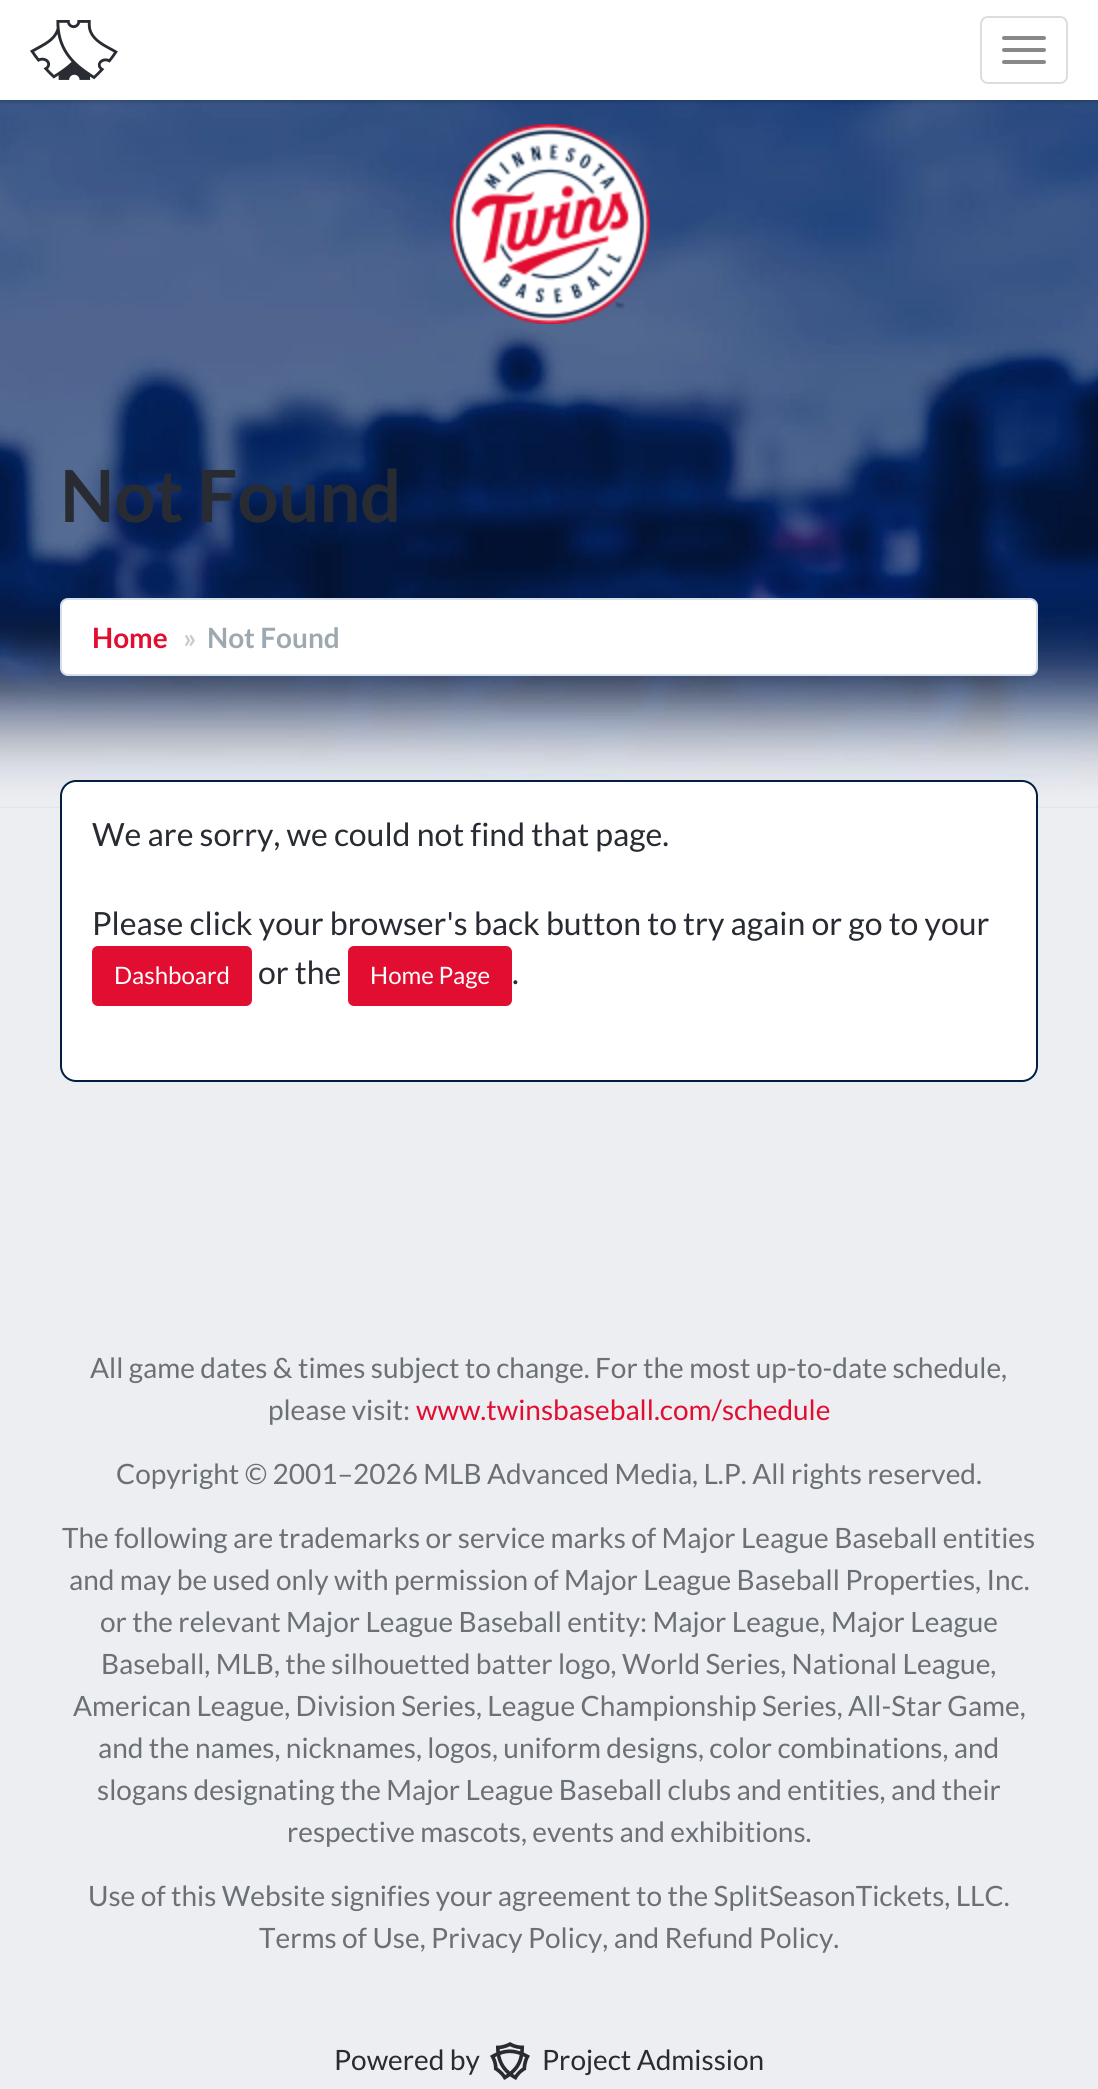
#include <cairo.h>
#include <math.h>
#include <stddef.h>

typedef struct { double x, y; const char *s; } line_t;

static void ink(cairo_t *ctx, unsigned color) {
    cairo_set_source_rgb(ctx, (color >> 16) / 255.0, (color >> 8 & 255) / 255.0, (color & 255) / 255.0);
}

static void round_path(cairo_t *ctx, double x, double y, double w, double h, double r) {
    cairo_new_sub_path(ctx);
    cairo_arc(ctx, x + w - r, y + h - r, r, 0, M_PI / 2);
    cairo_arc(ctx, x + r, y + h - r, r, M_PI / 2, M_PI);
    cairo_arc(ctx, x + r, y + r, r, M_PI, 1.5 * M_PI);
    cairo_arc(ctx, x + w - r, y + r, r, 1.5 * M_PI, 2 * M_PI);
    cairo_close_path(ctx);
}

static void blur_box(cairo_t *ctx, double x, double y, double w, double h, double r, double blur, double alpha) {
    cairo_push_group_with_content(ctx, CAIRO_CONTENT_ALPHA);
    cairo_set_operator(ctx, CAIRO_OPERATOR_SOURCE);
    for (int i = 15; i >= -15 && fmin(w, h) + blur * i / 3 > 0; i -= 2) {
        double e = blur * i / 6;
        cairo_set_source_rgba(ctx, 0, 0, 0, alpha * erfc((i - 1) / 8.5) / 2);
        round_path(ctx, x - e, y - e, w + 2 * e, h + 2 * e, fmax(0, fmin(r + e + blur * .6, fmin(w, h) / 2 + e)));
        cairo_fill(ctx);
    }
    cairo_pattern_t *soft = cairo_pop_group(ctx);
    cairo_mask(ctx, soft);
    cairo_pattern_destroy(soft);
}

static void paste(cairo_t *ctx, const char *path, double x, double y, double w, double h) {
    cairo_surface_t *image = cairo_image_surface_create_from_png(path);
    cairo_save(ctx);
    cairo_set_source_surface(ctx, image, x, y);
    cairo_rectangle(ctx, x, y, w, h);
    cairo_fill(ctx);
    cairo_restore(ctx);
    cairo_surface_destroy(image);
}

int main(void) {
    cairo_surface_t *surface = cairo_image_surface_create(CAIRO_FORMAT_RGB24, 1098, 2089);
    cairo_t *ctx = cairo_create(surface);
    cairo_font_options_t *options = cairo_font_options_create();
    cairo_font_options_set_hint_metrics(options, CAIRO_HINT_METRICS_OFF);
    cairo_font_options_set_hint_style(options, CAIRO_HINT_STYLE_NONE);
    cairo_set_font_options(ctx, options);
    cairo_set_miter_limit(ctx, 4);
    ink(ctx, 0xECEEF2);
    cairo_paint(ctx);
    paste(ctx, "media/2.png", 0, 100, 1098, 708);
    ink(ctx, 0x000000);
    blur_box(ctx, 0, 2, 1098, 100, 0, 2, 0.2);
    ink(ctx, 0xFFFFFF);
    cairo_rectangle(ctx, 0, 0, 1098, 100);
    cairo_fill(ctx);
    paste(ctx, "media/1.png", 30, 20, 88, 60);
    round_path(ctx, 981, 17, 86, 66, 7);
    ink(ctx, 0xDDDDDD);
    cairo_stroke(ctx);
    ink(ctx, 0x888888);
    round_path(ctx, 1002, 36, 44, 4, 2);
    cairo_fill(ctx);
    round_path(ctx, 1002, 48, 44, 4, 2);
    cairo_fill(ctx);
    round_path(ctx, 1002, 60, 44, 4, 2);
    cairo_fill(ctx);
    paste(ctx, "media/3.png", 450, 124, 200, 200);
    cairo_select_font_face(ctx, "Lato", CAIRO_FONT_SLANT_NORMAL, CAIRO_FONT_WEIGHT_BOLD);
    cairo_set_font_size(ctx, 72);
    ink(ctx, 0x282C32);
    cairo_move_to(ctx, 60, 522);
    cairo_show_text(ctx, "Not Found");
    ink(ctx, 0xFFFFFF);
    round_path(ctx, 61, 599, 976, 76, 7);
    cairo_fill_preserve(ctx);
    ink(ctx, 0xD3E0E9);
    cairo_stroke(ctx);
    cairo_set_font_size(ctx, 28);
    ink(ctx, 0xE20E32);
    cairo_move_to(ctx, 92, 648);
    cairo_show_text(ctx, "Home");
    ink(ctx, 0xCCCCCC);
    cairo_move_to(ctx, 183, 648);
    cairo_show_text(ctx, "»");
    ink(ctx, 0x9DA9B0);
    cairo_move_to(ctx, 207, 648);
    cairo_show_text(ctx, "Not Found");
    ink(ctx, 0xFFFFFF);
    round_path(ctx, 61, 781, 976, 300, 15);
    cairo_fill_preserve(ctx);
    ink(ctx, 0x012041);
    cairo_stroke(ctx);
    cairo_select_font_face(ctx, "Lato", CAIRO_FONT_SLANT_NORMAL, CAIRO_FONT_WEIGHT_NORMAL);
    cairo_set_font_size(ctx, 32);
    ink(ctx, 0x282C32);
    cairo_move_to(ctx, 92, 846);
    cairo_show_text(ctx, "We are sorry, we could not find that page.");
    cairo_move_to(ctx, 92, 935);
    cairo_show_text(ctx, "Please click your browser's back button to try again or go to your");
    ink(ctx, 0xE20E32);
    round_path(ctx, 93, 947, 158, 58, 5);
    cairo_fill_preserve(ctx);
    cairo_stroke(ctx);
    cairo_set_font_size(ctx, 24);
    ink(ctx, 0xFFFFFF);
    cairo_move_to(ctx, 114, 984);
    cairo_show_text(ctx, "Dashboard");
    cairo_set_font_size(ctx, 32);
    ink(ctx, 0x282C32);
    cairo_move_to(ctx, 258, 984);
    cairo_show_text(ctx, "or the");
    ink(ctx, 0xE20E32);
    round_path(ctx, 349, 947, 162, 58, 5);
    cairo_fill_preserve(ctx);
    cairo_stroke(ctx);
    cairo_set_font_size(ctx, 24);
    ink(ctx, 0xFFFFFF);
    cairo_move_to(ctx, 370, 984);
    cairo_show_text(ctx, "Home Page");
    cairo_set_font_size(ctx, 32);
    ink(ctx, 0x282C32);
    cairo_move_to(ctx, 512, 984);
    cairo_show_text(ctx, ".");
    cairo_set_font_size(ctx, 28);
    ink(ctx, 0x6B7076);
    cairo_move_to(ctx, 90, 1378);
    cairo_show_text(ctx, "All game dates & times subject to change. For the most up-to-date schedule,");
    cairo_move_to(ctx, 268, 1420);
    cairo_show_text(ctx, "please visit:");
    ink(ctx, 0xE20E32);
    cairo_move_to(ctx, 416, 1420);
    cairo_show_text(ctx, "www.twinsbaseball.com/schedule");
    ink(ctx, 0x6B7076);
    {
        static const line_t items[] = {
            {116, 1484, "Copyright © 2001–2026 MLB Advanced Media, L.P. All rights reserved."},
            {62, 1548, "The following are trademarks or service marks of Major League Baseball entities"},
            {69, 1590, "and may be used only with permission of Major League Baseball Properties, Inc."},
            {100, 1632, "or the relevant Major League Baseball entity: Major League, Major League"},
            {101, 1674, "Baseball, MLB, the silhouetted batter logo, World Series, National League,"},
            {73, 1716, "American League, Division Series, League Championship Series, All-Star Game,"},
            {98, 1758, "and the names, nicknames, logos, uniform designs, color combinations, and"},
            {97, 1800, "slogans designating the Major League Baseball clubs and entities, and their"},
            {287, 1842, "respective mascots, events and exhibitions."},
            {88, 1906, "Use of this Website signifies your agreement to the SplitSeasonTickets, LLC."},
            {259, 1948, "Terms of Use, Privacy Policy, and Refund Policy."},
        };
        for (size_t i = 0; i < sizeof items / sizeof *items; i++) {
            cairo_move_to(ctx, items[i].x, items[i].y);
            cairo_show_text(ctx, items[i].s);
        }
    }
    ink(ctx, 0x282C32);
    cairo_move_to(ctx, 334, 2070);
    cairo_show_text(ctx, "Powered by");
    paste(ctx, "media/4.png", 490, 2042, 40, 38);
    cairo_move_to(ctx, 542, 2070);
    cairo_show_text(ctx, "Project Admission");
    cairo_surface_write_to_png(surface, "image.png");
    cairo_font_options_destroy(options);
    cairo_destroy(ctx);
    cairo_surface_destroy(surface);
    return 0;
}
